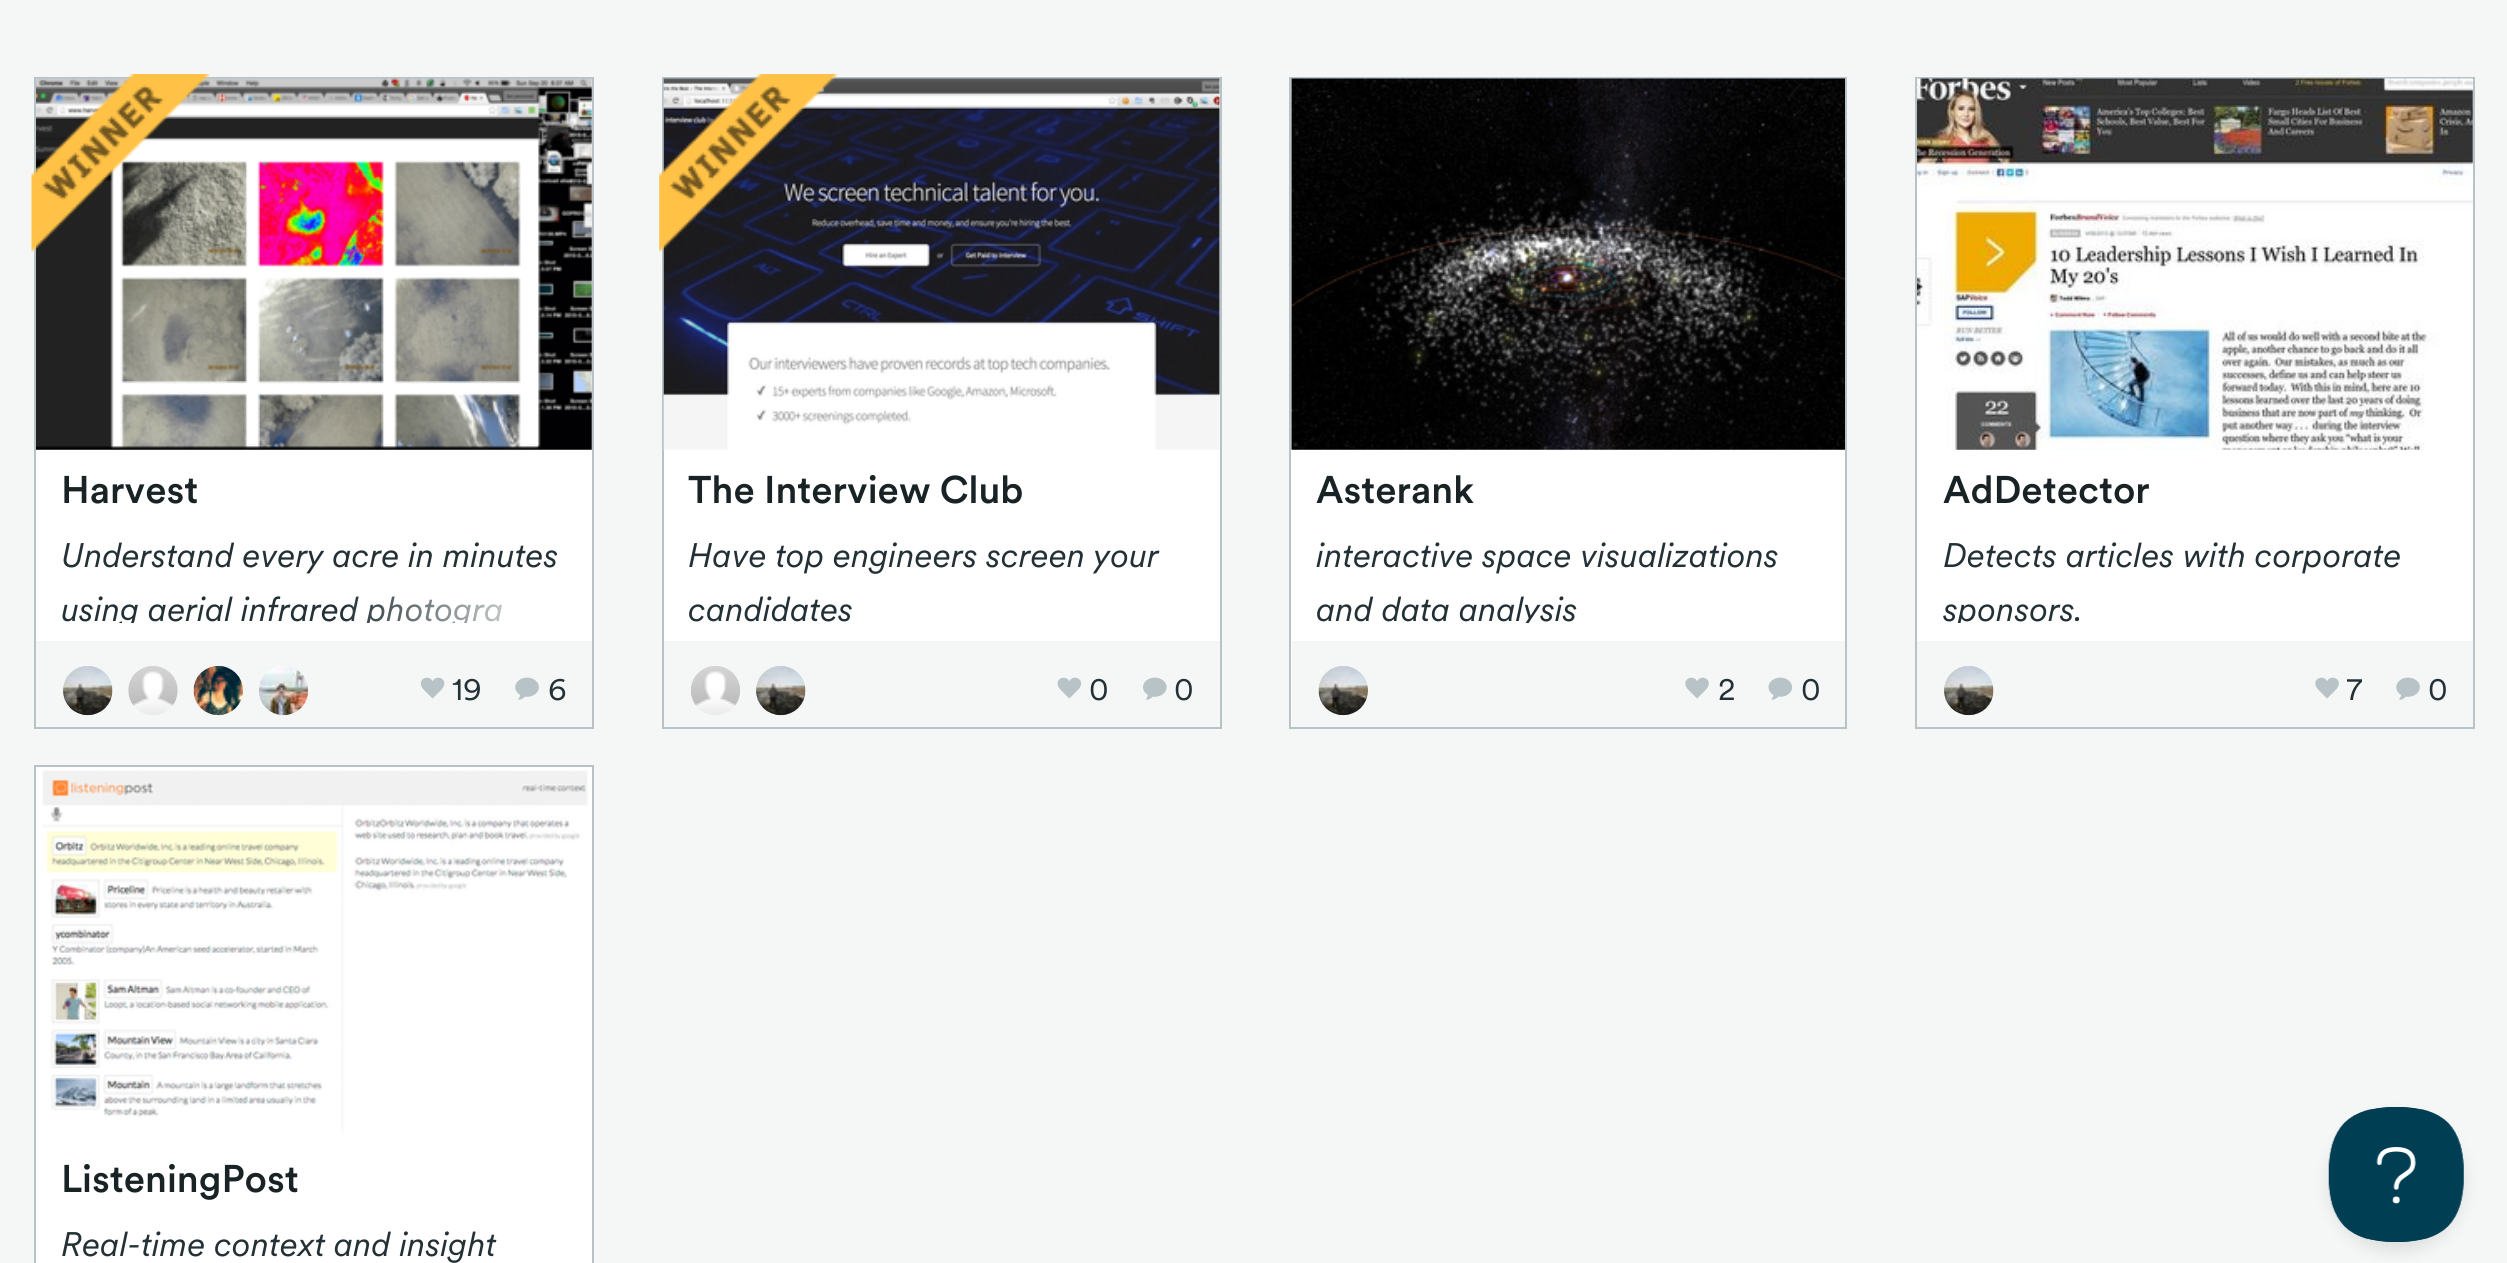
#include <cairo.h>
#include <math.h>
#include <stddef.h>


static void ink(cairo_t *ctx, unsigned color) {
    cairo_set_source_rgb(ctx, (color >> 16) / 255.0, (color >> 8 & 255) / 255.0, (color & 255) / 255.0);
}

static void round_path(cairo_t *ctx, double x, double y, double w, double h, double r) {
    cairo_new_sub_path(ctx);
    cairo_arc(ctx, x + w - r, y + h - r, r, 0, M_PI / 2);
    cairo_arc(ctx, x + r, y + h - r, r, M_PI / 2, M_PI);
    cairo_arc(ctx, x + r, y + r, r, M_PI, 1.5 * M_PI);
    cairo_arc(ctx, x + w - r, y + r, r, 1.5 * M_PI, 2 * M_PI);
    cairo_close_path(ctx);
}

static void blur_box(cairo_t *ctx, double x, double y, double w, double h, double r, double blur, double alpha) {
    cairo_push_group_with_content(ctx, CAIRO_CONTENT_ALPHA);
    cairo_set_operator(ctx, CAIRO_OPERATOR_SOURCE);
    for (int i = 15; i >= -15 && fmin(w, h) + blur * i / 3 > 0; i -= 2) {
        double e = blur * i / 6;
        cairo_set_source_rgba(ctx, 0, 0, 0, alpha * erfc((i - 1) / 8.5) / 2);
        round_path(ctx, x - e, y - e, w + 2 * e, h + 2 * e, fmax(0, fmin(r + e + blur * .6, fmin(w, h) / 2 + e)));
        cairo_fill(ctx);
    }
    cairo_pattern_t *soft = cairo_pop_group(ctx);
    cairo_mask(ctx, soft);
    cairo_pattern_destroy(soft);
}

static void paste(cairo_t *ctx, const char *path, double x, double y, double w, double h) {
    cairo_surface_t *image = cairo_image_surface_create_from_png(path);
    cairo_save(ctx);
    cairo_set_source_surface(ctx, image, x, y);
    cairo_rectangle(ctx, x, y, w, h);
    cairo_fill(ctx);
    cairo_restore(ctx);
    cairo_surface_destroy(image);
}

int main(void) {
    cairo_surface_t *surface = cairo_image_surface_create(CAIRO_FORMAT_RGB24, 2507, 1263);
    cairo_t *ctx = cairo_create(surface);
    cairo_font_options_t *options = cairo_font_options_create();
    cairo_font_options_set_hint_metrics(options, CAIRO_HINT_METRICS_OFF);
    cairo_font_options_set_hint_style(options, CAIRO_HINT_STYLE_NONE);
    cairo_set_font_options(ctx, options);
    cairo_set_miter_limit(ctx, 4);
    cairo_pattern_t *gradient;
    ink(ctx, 0xF5F7F7);
    cairo_paint(ctx);
    ink(ctx, 0xFFFFFF);
    cairo_rectangle(ctx, 36, 79, 556, 562);
    cairo_fill(ctx);
    cairo_rectangle(ctx, 35, 78, 558, 650);
    ink(ctx, 0xB7C3C7);
    cairo_stroke(ctx);
    paste(ctx, "media/2.png", 36, 78, 556, 372);
    paste(ctx, "media/1.png", 31, 74, 179, 178);
    cairo_select_font_face(ctx, "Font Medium", CAIRO_FONT_SLANT_NORMAL, CAIRO_FONT_WEIGHT_NORMAL);
    cairo_set_font_size(ctx, 38.25);
    ink(ctx, 0x192325);
    cairo_move_to(ctx, 61, 503);
    cairo_show_text(ctx, "Harvest");
    cairo_select_font_face(ctx, "Font", CAIRO_FONT_SLANT_ITALIC, CAIRO_FONT_WEIGHT_NORMAL);
    cairo_set_font_size(ctx, 33.75);
    ink(ctx, 0x233136);
    cairo_move_to(ctx, 61, 567);
    cairo_show_text(ctx, "Understand every acre in minutes");
    cairo_save(ctx);
    cairo_rectangle(ctx, 61, 529, 506, 94);
    cairo_clip(ctx);
    cairo_move_to(ctx, 61, 621);
    cairo_show_text(ctx, "using aerial infrared photogra");
    cairo_restore(ctx);
    gradient = cairo_pattern_create_linear(342, 600, 567, 600);
    cairo_pattern_add_color_stop_rgba(gradient, 0, 1, 1, 1, 0);
    cairo_pattern_add_color_stop_rgba(gradient, 1, 1, 1, 1, 1);
    cairo_set_source(ctx, gradient);
    cairo_pattern_destroy(gradient);
    cairo_rectangle(ctx, 347, 596, 155, 27);
    cairo_fill(ctx);
    paste(ctx, "media/3.png", 63, 666, 50, 50);
    paste(ctx, "media/4.png", 128, 666, 50, 49);
    paste(ctx, "media/5.png", 193, 665, 50, 51);
    paste(ctx, "media/6.png", 259, 666, 50, 50);
    paste(ctx, "media/7.png", 420, 677, 25, 22);
    cairo_select_font_face(ctx, "Font", CAIRO_FONT_SLANT_NORMAL, CAIRO_FONT_WEIGHT_NORMAL);
    cairo_set_font_size(ctx, 32);
    ink(ctx, 0x233136);
    cairo_move_to(ctx, 452, 700);
    cairo_show_text(ctx, "19");
    paste(ctx, "media/8.png", 515, 677, 24, 23);
    cairo_move_to(ctx, 548, 700);
    cairo_show_text(ctx, "6");
    ink(ctx, 0xFFFFFF);
    cairo_rectangle(ctx, 664, 79, 556, 562);
    cairo_fill(ctx);
    cairo_rectangle(ctx, 663, 78, 558, 650);
    ink(ctx, 0xB7C3C7);
    cairo_stroke(ctx);
    paste(ctx, "media/10.png", 663, 78, 557, 372);
    paste(ctx, "media/9.png", 659, 74, 178, 178);
    cairo_select_font_face(ctx, "Font Medium", CAIRO_FONT_SLANT_NORMAL, CAIRO_FONT_WEIGHT_NORMAL);
    cairo_set_font_size(ctx, 38.25);
    ink(ctx, 0x192325);
    cairo_move_to(ctx, 688, 503);
    cairo_show_text(ctx, "The Interview Club");
    cairo_select_font_face(ctx, "Font", CAIRO_FONT_SLANT_ITALIC, CAIRO_FONT_WEIGHT_NORMAL);
    cairo_set_font_size(ctx, 33.75);
    ink(ctx, 0x233136);
    cairo_move_to(ctx, 688, 567);
    cairo_show_text(ctx, "Have top engineers screen your");
    cairo_move_to(ctx, 688, 621);
    cairo_show_text(ctx, "candidates");
    paste(ctx, "media/11.png", 691, 666, 49, 49);
    paste(ctx, "media/12.png", 756, 666, 50, 50);
    paste(ctx, "media/13.png", 1057, 677, 25, 22);
    cairo_select_font_face(ctx, "Font", CAIRO_FONT_SLANT_NORMAL, CAIRO_FONT_WEIGHT_NORMAL);
    cairo_set_font_size(ctx, 32);
    cairo_move_to(ctx, 1089, 700);
    cairo_show_text(ctx, "0");
    paste(ctx, "media/14.png", 1143, 677, 24, 23);
    cairo_move_to(ctx, 1174, 700);
    cairo_show_text(ctx, "0");
    ink(ctx, 0xFFFFFF);
    cairo_rectangle(ctx, 1290, 78, 556, 650);
    cairo_fill_preserve(ctx);
    ink(ctx, 0xB7C3C7);
    cairo_stroke(ctx);
    paste(ctx, "media/15.png", 1291, 78, 554, 372);
    cairo_select_font_face(ctx, "Font Medium", CAIRO_FONT_SLANT_NORMAL, CAIRO_FONT_WEIGHT_NORMAL);
    cairo_set_font_size(ctx, 38.25);
    ink(ctx, 0x192325);
    cairo_move_to(ctx, 1316, 503);
    cairo_show_text(ctx, "Asterank");
    cairo_select_font_face(ctx, "Font", CAIRO_FONT_SLANT_ITALIC, CAIRO_FONT_WEIGHT_NORMAL);
    cairo_set_font_size(ctx, 33.75);
    ink(ctx, 0x233136);
    cairo_move_to(ctx, 1316, 567);
    cairo_show_text(ctx, "interactive space visualizations");
    cairo_save(ctx);
    cairo_rectangle(ctx, 1316, 529, 504, 94);
    cairo_clip(ctx);
    cairo_move_to(ctx, 1316, 621);
    cairo_show_text(ctx, "and data analysis");
    cairo_restore(ctx);
    ink(ctx, 0xF5F7F7);
    cairo_rectangle(ctx, 1292, 641, 553, 86);
    cairo_fill(ctx);
    paste(ctx, "media/16.png", 1318, 666, 50, 50);
    paste(ctx, "media/17.png", 1685, 677, 24, 22);
    cairo_select_font_face(ctx, "Font", CAIRO_FONT_SLANT_NORMAL, CAIRO_FONT_WEIGHT_NORMAL);
    cairo_set_font_size(ctx, 32);
    ink(ctx, 0x233136);
    cairo_move_to(ctx, 1718, 700);
    cairo_show_text(ctx, "2");
    paste(ctx, "media/18.png", 1768, 677, 25, 23);
    cairo_move_to(ctx, 1801, 700);
    cairo_show_text(ctx, "0");
    ink(ctx, 0xFFFFFF);
    cairo_rectangle(ctx, 1917, 79, 556, 562);
    cairo_fill(ctx);
    cairo_rectangle(ctx, 1916, 78, 558, 650);
    ink(ctx, 0xB7C3C7);
    cairo_stroke(ctx);
    paste(ctx, "media/19.png", 1917, 78, 556, 372);
    cairo_select_font_face(ctx, "Font Medium", CAIRO_FONT_SLANT_NORMAL, CAIRO_FONT_WEIGHT_NORMAL);
    cairo_set_font_size(ctx, 38.25);
    ink(ctx, 0x192325);
    cairo_move_to(ctx, 1943, 503);
    cairo_show_text(ctx, "AdDetector");
    cairo_select_font_face(ctx, "Font", CAIRO_FONT_SLANT_ITALIC, CAIRO_FONT_WEIGHT_NORMAL);
    cairo_set_font_size(ctx, 33.75);
    ink(ctx, 0x233136);
    cairo_move_to(ctx, 1943, 567);
    cairo_show_text(ctx, "Detects articles with corporate");
    cairo_save(ctx);
    cairo_rectangle(ctx, 1942, 529, 506, 94);
    cairo_clip(ctx);
    cairo_move_to(ctx, 1943, 621);
    cairo_show_text(ctx, "sponsors.");
    cairo_restore(ctx);
    paste(ctx, "media/3.png", 1944, 666, 50, 50);
    paste(ctx, "media/17.png", 2315, 677, 24, 22);
    cairo_select_font_face(ctx, "Font", CAIRO_FONT_SLANT_NORMAL, CAIRO_FONT_WEIGHT_NORMAL);
    cairo_set_font_size(ctx, 32);
    cairo_move_to(ctx, 2346, 700);
    cairo_show_text(ctx, "7");
    paste(ctx, "media/8.png", 2396, 677, 24, 23);
    cairo_move_to(ctx, 2428, 700);
    cairo_show_text(ctx, "0");
    ink(ctx, 0xFFFFFF);
    cairo_rectangle(ctx, 35, 766, 558, 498);
    cairo_fill_preserve(ctx);
    ink(ctx, 0xB7C3C7);
    cairo_stroke(ctx);
    paste(ctx, "media/20.png", 42, 770, 546, 363);
    cairo_select_font_face(ctx, "Font Medium", CAIRO_FONT_SLANT_NORMAL, CAIRO_FONT_WEIGHT_NORMAL);
    cairo_set_font_size(ctx, 38.25);
    ink(ctx, 0x192325);
    cairo_move_to(ctx, 61, 1192);
    cairo_show_text(ctx, "ListeningPost");
    cairo_select_font_face(ctx, "Font", CAIRO_FONT_SLANT_ITALIC, CAIRO_FONT_WEIGHT_NORMAL);
    cairo_set_font_size(ctx, 33.75);
    ink(ctx, 0x233136);
    cairo_move_to(ctx, 61, 1256);
    cairo_show_text(ctx, "Real-time context and insight");
    ink(ctx, 0x000000);
    blur_box(ctx, 2329, 1116, 135, 135, 67.5, 8, 0.1);
    paste(ctx, "media/21.png", 2328, 1107, 136, 135);
    cairo_surface_write_to_png(surface, "image.png");
    cairo_font_options_destroy(options);
    cairo_destroy(ctx);
    cairo_surface_destroy(surface);
    return 0;
}
